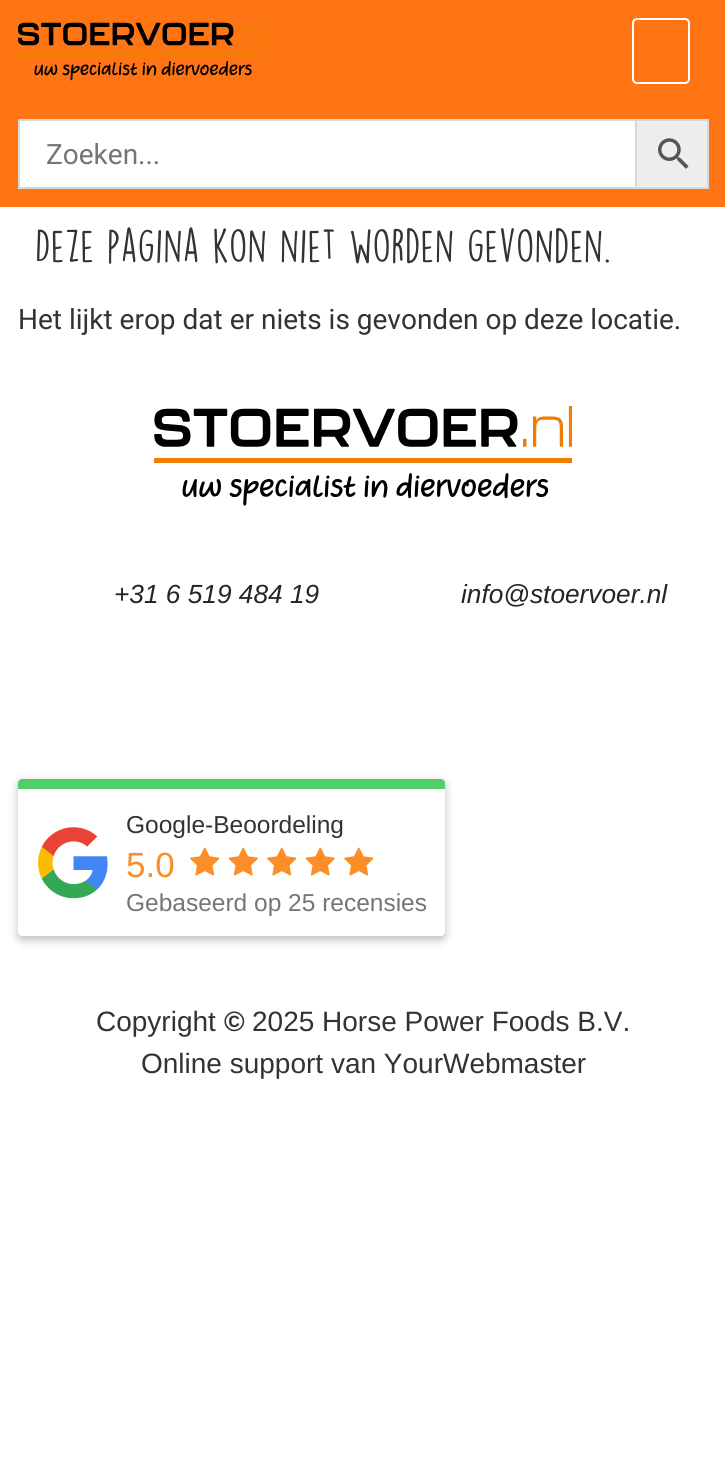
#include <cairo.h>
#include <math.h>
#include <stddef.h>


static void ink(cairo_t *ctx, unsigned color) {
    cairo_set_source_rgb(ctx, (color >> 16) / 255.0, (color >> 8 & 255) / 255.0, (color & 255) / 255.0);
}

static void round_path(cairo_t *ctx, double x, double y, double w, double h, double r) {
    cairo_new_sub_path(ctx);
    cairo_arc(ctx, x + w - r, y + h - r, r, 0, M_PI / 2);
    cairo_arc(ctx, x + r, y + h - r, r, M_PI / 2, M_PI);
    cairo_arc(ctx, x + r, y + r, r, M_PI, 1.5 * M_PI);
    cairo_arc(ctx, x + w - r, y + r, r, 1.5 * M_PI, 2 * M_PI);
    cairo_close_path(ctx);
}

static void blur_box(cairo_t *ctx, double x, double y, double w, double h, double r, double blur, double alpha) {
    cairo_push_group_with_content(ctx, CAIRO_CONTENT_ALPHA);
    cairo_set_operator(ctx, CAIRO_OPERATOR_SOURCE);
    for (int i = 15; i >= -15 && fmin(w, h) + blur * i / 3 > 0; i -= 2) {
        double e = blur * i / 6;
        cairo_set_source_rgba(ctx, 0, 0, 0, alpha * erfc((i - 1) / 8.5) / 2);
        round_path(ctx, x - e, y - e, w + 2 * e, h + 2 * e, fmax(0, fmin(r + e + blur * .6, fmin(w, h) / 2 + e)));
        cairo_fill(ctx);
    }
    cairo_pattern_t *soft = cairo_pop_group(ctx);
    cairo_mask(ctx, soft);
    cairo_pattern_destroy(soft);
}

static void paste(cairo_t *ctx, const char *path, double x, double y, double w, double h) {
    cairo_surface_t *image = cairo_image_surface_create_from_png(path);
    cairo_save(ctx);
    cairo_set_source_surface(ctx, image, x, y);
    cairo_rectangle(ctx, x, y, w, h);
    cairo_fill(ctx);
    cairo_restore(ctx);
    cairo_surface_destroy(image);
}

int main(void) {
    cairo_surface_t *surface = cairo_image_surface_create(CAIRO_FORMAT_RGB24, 725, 1484);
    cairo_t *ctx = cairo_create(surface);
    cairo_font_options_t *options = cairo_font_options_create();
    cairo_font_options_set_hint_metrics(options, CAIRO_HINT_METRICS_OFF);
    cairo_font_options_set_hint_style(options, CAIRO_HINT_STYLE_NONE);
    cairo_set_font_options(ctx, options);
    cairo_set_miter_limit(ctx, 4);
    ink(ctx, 0xFFFFFF);
    cairo_paint(ctx);
    ink(ctx, 0xFF7514);
    cairo_rectangle(ctx, 0, 0, 725, 207);
    cairo_fill(ctx);
    paste(ctx, "media/1.png", 18, 21, 248, 60);
    round_path(ctx, 633, 19, 56, 64, 4);
    ink(ctx, 0xFFFFFF);
    cairo_stroke(ctx);
    cairo_rectangle(ctx, 20, 121, 615, 66);
    cairo_fill(ctx);
    ink(ctx, 0xEDEDED);
    cairo_rectangle(ctx, 636, 120, 72, 68);
    cairo_fill_preserve(ctx);
    ink(ctx, 0xD8D8D8);
    cairo_stroke(ctx);
    cairo_rectangle(ctx, 19, 120, 617, 68);
    cairo_stroke(ctx);
    cairo_select_font_face(ctx, "Roboto", CAIRO_FONT_SLANT_NORMAL, CAIRO_FONT_WEIGHT_NORMAL);
    cairo_set_font_size(ctx, 28);
    ink(ctx, 0x757575);
    cairo_move_to(ctx, 46, 164);
    cairo_show_text(ctx, "Zoeken...");
    paste(ctx, "media/2.png", 658, 138, 31, 31);
    cairo_select_font_face(ctx, "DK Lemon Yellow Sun", CAIRO_FONT_SLANT_NORMAL, CAIRO_FONT_WEIGHT_NORMAL);
    cairo_set_font_size(ctx, 42);
    ink(ctx, 0x333333);
    cairo_move_to(ctx, 35, 263);
    cairo_show_text(ctx, "Deze pagina kon niet worden gevonden.");
    cairo_select_font_face(ctx, "Roboto", CAIRO_FONT_SLANT_NORMAL, CAIRO_FONT_WEIGHT_NORMAL);
    cairo_set_font_size(ctx, 28);
    cairo_move_to(ctx, 18, 329);
    cairo_show_text(ctx, "Het lijkt erop dat er niets is gevonden op deze locatie.");
    paste(ctx, "media/3.png", 154, 406, 418, 100);
    cairo_select_font_face(ctx, "Liberation Sans", CAIRO_FONT_SLANT_ITALIC, CAIRO_FONT_WEIGHT_NORMAL);
    cairo_set_font_size(ctx, 26.25);
    ink(ctx, 0x242424);
    cairo_move_to(ctx, 114, 603);
    cairo_show_text(ctx, "+31 6 519 484 19");
    cairo_move_to(ctx, 461, 603);
    cairo_show_text(ctx, "info@stoervoer.nl");
    ink(ctx, 0x000000);
    blur_box(ctx, 18, 782, 427, 158, 4, 4.5, 0.26);
    ink(ctx, 0x4FCE6A);
    cairo_new_path(ctx);
    cairo_move_to(ctx, 22, 779);
    cairo_line_to(ctx, 441, 779);
    cairo_curve_to(ctx, 443, 779, 445, 781, 445, 783);
    cairo_line_to(ctx, 445, 789);
    cairo_line_to(ctx, 18, 789);
    cairo_line_to(ctx, 18, 783);
    cairo_curve_to(ctx, 18, 781, 20, 779, 22, 779);
    cairo_close_path(ctx);
    cairo_fill(ctx);
    ink(ctx, 0xFFFFFF);
    cairo_new_path(ctx);
    cairo_move_to(ctx, 18, 789);
    cairo_line_to(ctx, 445, 789);
    cairo_line_to(ctx, 445, 932);
    cairo_curve_to(ctx, 445, 934, 443, 936, 441, 936);
    cairo_line_to(ctx, 22, 936);
    cairo_curve_to(ctx, 20, 936, 18, 934, 18, 932);
    cairo_close_path(ctx);
    cairo_fill(ctx);
    paste(ctx, "media/4.png", 38, 827, 70, 72);
    cairo_select_font_face(ctx, "Liberation Sans", CAIRO_FONT_SLANT_NORMAL, CAIRO_FONT_WEIGHT_NORMAL);
    cairo_set_font_size(ctx, 24.5);
    ink(ctx, 0x333333);
    cairo_move_to(ctx, 126, 833);
    cairo_show_text(ctx, "Google-Beoordeling");
    cairo_set_font_size(ctx, 35);
    ink(ctx, 0xFB8E28);
    cairo_move_to(ctx, 126, 877);
    cairo_show_text(ctx, "5.0");
    paste(ctx, "media/5.png", 190, 847, 30, 29);
    paste(ctx, "media/6.png", 228, 847, 30, 29);
    paste(ctx, "media/5.png", 267, 847, 30, 29);
    paste(ctx, "media/6.png", 305, 847, 30, 29);
    paste(ctx, "media/5.png", 344, 847, 30, 29);
    cairo_set_font_size(ctx, 24.5);
    ink(ctx, 0x757575);
    cairo_move_to(ctx, 126, 911);
    cairo_show_text(ctx, "Gebaseerd op 25 recensies");
    cairo_set_font_size(ctx, 28);
    ink(ctx, 0x333333);
    cairo_move_to(ctx, 96, 1031);
    cairo_show_text(ctx, "Copyright");
    cairo_select_font_face(ctx, "Liberation Sans", CAIRO_FONT_SLANT_NORMAL, CAIRO_FONT_WEIGHT_BOLD);
    cairo_move_to(ctx, 224, 1031);
    cairo_show_text(ctx, "©");
    cairo_select_font_face(ctx, "Liberation Sans", CAIRO_FONT_SLANT_NORMAL, CAIRO_FONT_WEIGHT_NORMAL);
    cairo_move_to(ctx, 252, 1031);
    cairo_show_text(ctx, "2025 Horse Power Foods B.V.");
    cairo_move_to(ctx, 141, 1073);
    cairo_show_text(ctx, "Online support van YourWebmaster");
    cairo_surface_write_to_png(surface, "image.png");
    cairo_font_options_destroy(options);
    cairo_destroy(ctx);
    cairo_surface_destroy(surface);
    return 0;
}
